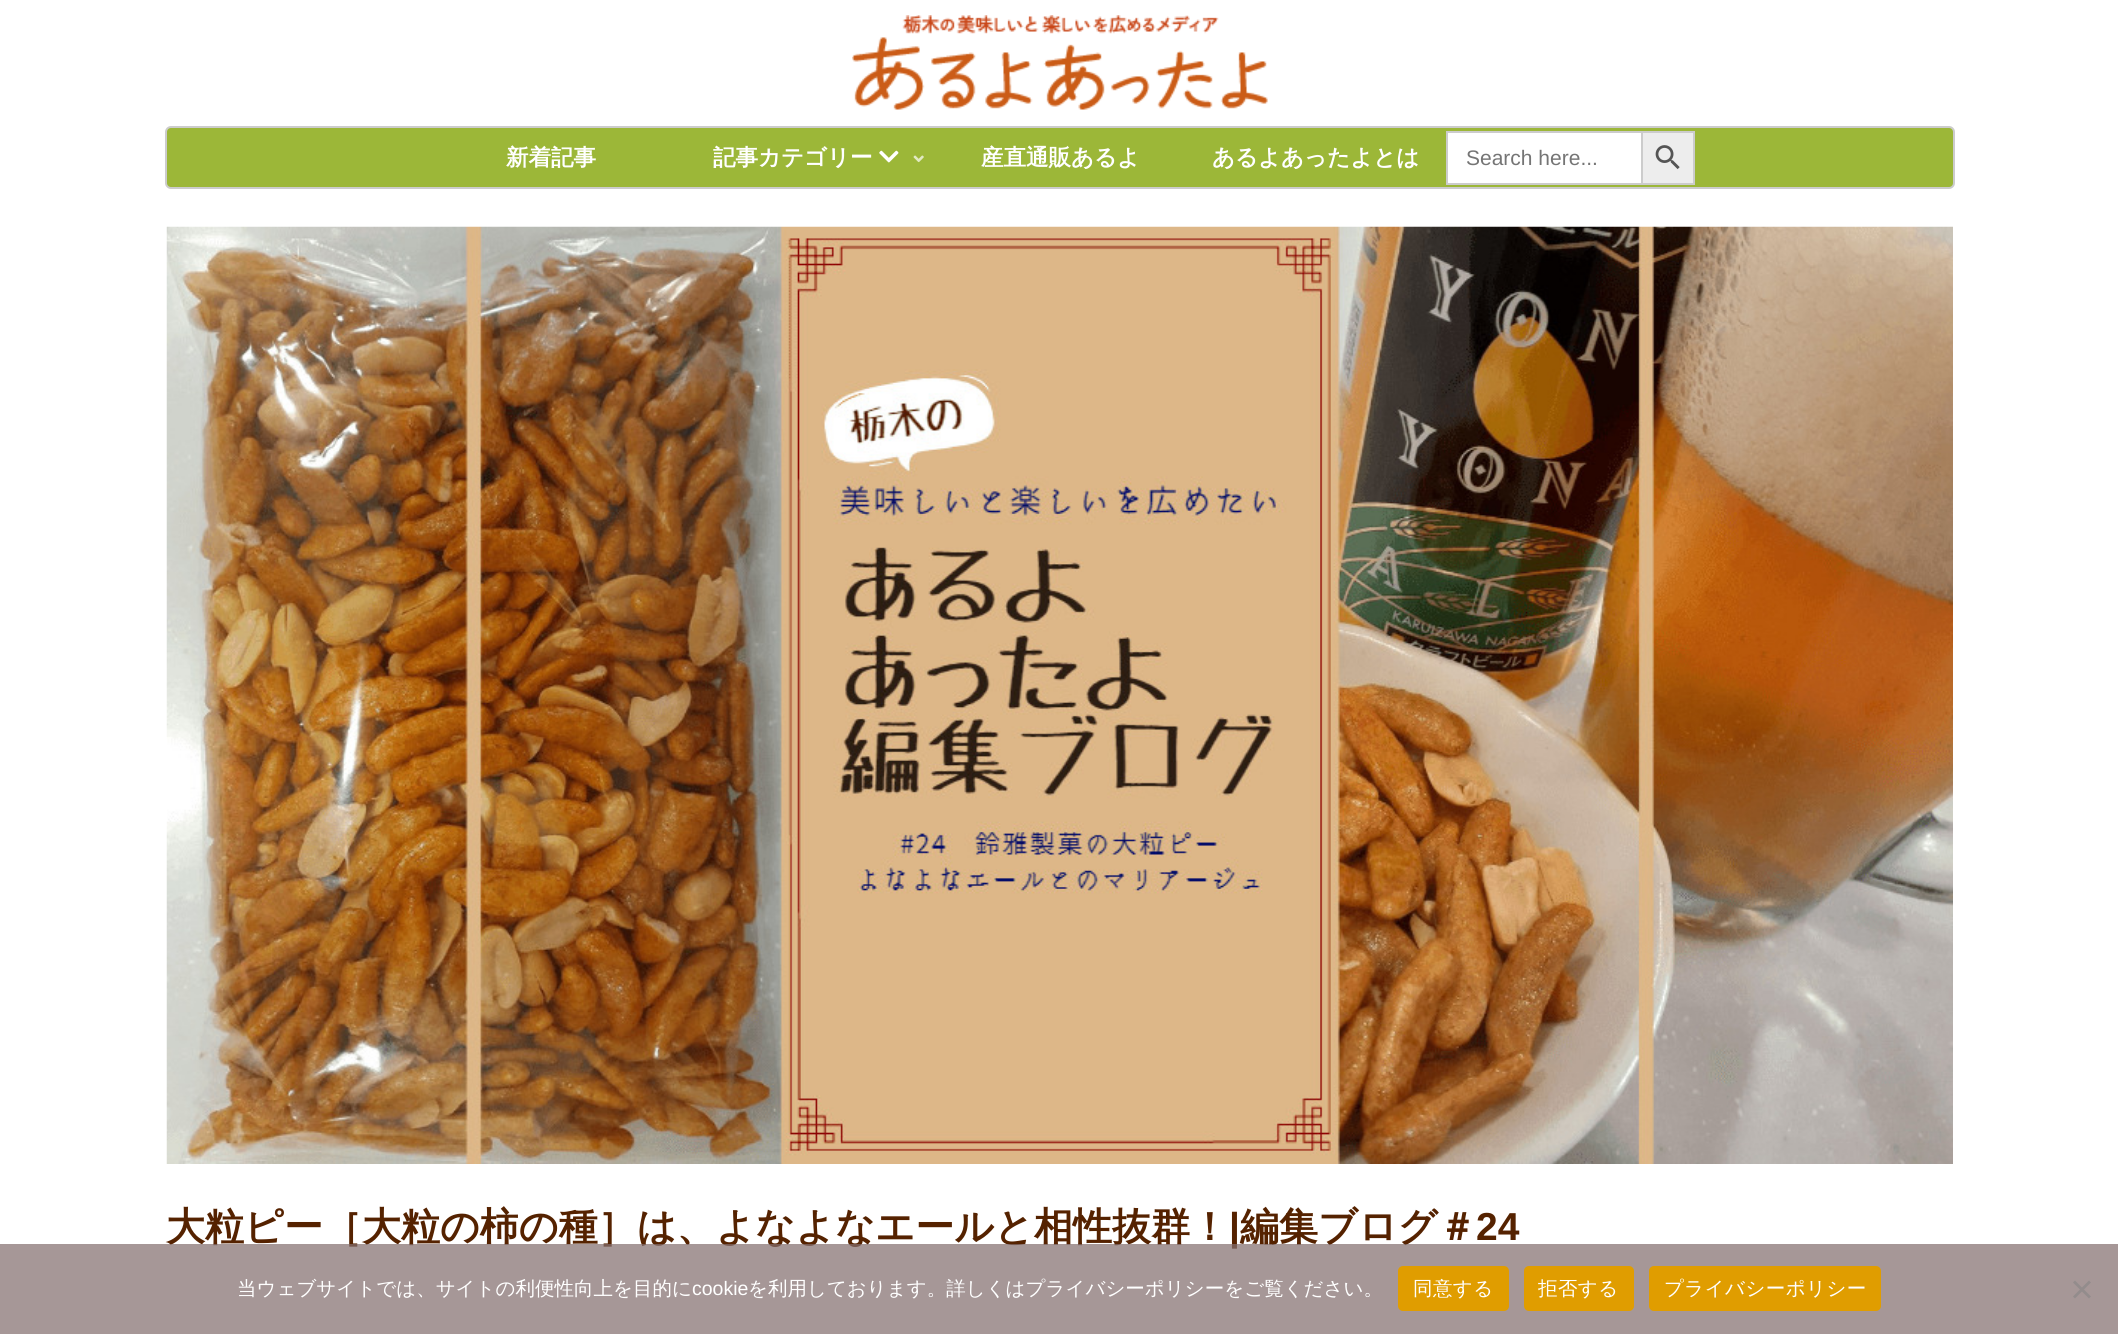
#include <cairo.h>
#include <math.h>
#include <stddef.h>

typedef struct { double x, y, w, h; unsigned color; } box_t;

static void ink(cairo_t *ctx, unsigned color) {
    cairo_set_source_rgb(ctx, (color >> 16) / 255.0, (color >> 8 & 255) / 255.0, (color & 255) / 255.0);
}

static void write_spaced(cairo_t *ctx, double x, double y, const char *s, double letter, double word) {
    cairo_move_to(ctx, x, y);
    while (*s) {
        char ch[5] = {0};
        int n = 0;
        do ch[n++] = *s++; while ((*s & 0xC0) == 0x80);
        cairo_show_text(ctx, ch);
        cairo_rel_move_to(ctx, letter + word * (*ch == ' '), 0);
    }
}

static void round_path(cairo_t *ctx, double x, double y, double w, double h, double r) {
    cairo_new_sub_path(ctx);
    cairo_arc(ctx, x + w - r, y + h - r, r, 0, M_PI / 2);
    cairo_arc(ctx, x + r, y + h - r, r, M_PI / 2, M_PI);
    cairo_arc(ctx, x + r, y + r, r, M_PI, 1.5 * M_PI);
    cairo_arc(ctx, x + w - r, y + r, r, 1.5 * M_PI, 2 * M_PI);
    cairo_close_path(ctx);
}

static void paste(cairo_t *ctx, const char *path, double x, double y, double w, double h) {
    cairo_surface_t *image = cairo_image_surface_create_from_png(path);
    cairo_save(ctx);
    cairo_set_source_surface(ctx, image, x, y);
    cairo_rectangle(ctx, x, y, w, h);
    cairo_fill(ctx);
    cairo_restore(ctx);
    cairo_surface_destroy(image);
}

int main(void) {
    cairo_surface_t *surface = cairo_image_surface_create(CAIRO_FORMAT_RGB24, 2118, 1334);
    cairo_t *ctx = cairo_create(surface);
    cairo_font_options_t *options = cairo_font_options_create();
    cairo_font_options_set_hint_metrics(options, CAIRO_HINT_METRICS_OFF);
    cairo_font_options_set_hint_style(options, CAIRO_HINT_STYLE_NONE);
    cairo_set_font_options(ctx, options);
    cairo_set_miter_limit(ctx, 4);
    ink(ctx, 0xFFFFFF);
    cairo_paint(ctx);
    paste(ctx, "media/1.png", 852, 15, 416, 95);
    ink(ctx, 0x9CB738);
    round_path(ctx, 166, 127, 1788, 61, 5);
    cairo_fill_preserve(ctx);
    ink(ctx, 0xCCCCCC);
    cairo_stroke(ctx);
    cairo_select_font_face(ctx, "WenQuanYi Zen Hei", CAIRO_FONT_SLANT_NORMAL, CAIRO_FONT_WEIGHT_BOLD);
    cairo_set_font_size(ctx, 22.5);
    ink(ctx, 0xFFFFFF);
    cairo_move_to(ctx, 506, 165);
    cairo_show_text(ctx, "新着記事");
    cairo_move_to(ctx, 713, 165);
    cairo_show_text(ctx, "記事カテゴリー");
    paste(ctx, "media/2.png", 879, 150, 20, 13);
    paste(ctx, "media/3.png", 913, 155, 11, 8);
    cairo_move_to(ctx, 981, 165);
    cairo_show_text(ctx, "産直通販あるよ");
    cairo_move_to(ctx, 1212, 165);
    cairo_show_text(ctx, "あるよあったよとは");
    {
        static const box_t items[] = {
            {1448, 133, 193, 50, 0xFFFFFF},
            {1446, 131, 195, 2, 0xCCCCCC},
            {1446, 183, 195, 2, 0xCCCCCC},
            {1446, 131, 2, 54, 0xCCCCCC},
        };
        for (size_t i = 0; i < sizeof items / sizeof *items; i++) {
            ink(ctx, items[i].color);
            cairo_rectangle(ctx, items[i].x, items[i].y, items[i].w, items[i].h);
            cairo_fill(ctx);
        }
    }
    cairo_select_font_face(ctx, "Liberation Sans", CAIRO_FONT_SLANT_NORMAL, CAIRO_FONT_WEIGHT_NORMAL);
    cairo_set_font_size(ctx, 21);
    ink(ctx, 0x757575);
    cairo_move_to(ctx, 1466, 165);
    cairo_show_text(ctx, "Search here...");
    ink(ctx, 0xEDEDED);
    cairo_rectangle(ctx, 1642, 132, 52, 52);
    cairo_fill_preserve(ctx);
    ink(ctx, 0xCCCCCC);
    cairo_stroke(ctx);
    paste(ctx, "media/4.png", 1655, 145, 25, 25);
    paste(ctx, "media/5.png", 166, 226, 1787, 938);
    cairo_select_font_face(ctx, "WenQuanYi Zen Hei", CAIRO_FONT_SLANT_NORMAL, CAIRO_FONT_WEIGHT_BOLD);
    cairo_set_font_size(ctx, 39);
    ink(ctx, 0x552200);
    cairo_move_to(ctx, 166, 1240);
    cairo_show_text(ctx, "大粒ピー［大粒の柿の種］は、よなよなエールと相性抜群！");
    cairo_select_font_face(ctx, "Liberation Sans", CAIRO_FONT_SLANT_NORMAL, CAIRO_FONT_WEIGHT_BOLD);
    cairo_move_to(ctx, 1229, 1240);
    cairo_show_text(ctx, "|");
    cairo_select_font_face(ctx, "WenQuanYi Zen Hei", CAIRO_FONT_SLANT_NORMAL, CAIRO_FONT_WEIGHT_BOLD);
    cairo_move_to(ctx, 1240, 1240);
    cairo_show_text(ctx, "編集ブログ＃");
    cairo_select_font_face(ctx, "Liberation Sans", CAIRO_FONT_SLANT_NORMAL, CAIRO_FONT_WEIGHT_BOLD);
    cairo_move_to(ctx, 1476, 1240);
    cairo_show_text(ctx, "24");
    cairo_set_source_rgba(ctx, 0.518, 0.435, 0.435, 0.72);
    cairo_rectangle(ctx, 0, 1244, 2118, 90);
    cairo_fill(ctx);
    cairo_select_font_face(ctx, "WenQuanYi Zen Hei Medium", CAIRO_FONT_SLANT_NORMAL, CAIRO_FONT_WEIGHT_NORMAL);
    cairo_set_font_size(ctx, 19.5);
    ink(ctx, 0xFFFFFF);
    cairo_move_to(ctx, 237, 1295);
    cairo_show_text(ctx, "当ウェブサイトでは、サイトの利便性向上を目的に");
    cairo_select_font_face(ctx, "Liberation Sans", CAIRO_FONT_SLANT_NORMAL, CAIRO_FONT_WEIGHT_NORMAL);
    cairo_move_to(ctx, 692, 1295);
    cairo_show_text(ctx, "cookie");
    cairo_select_font_face(ctx, "WenQuanYi Zen Hei Medium", CAIRO_FONT_SLANT_NORMAL, CAIRO_FONT_WEIGHT_NORMAL);
    cairo_move_to(ctx, 748, 1295);
    cairo_show_text(ctx, "を利用しております。詳しくはプライバシーポリシーをご覧ください。");
    ink(ctx, 0xE09D00);
    round_path(ctx, 1398, 1266, 111, 45, 5);
    cairo_fill(ctx);
    ink(ctx, 0xFFFFFF);
    write_spaced(ctx, 1413, 1295, "同意する", 0.4, 0);
    ink(ctx, 0xE09D00);
    round_path(ctx, 1524, 1266, 110, 45, 5);
    cairo_fill(ctx);
    ink(ctx, 0xFFFFFF);
    write_spaced(ctx, 1538, 1295, "拒否する", 0.4, 0);
    ink(ctx, 0xE09D00);
    round_path(ctx, 1649, 1266, 232, 45, 5);
    cairo_fill(ctx);
    ink(ctx, 0xFFFFFF);
    write_spaced(ctx, 1664, 1295, "プライバシーポリシー", 0.4, 0);
    ink(ctx, 0x938C8C);
    cairo_new_path(ctx);
    cairo_move_to(ctx, 2089, 1280.5);
    cairo_line_to(ctx, 2091, 1282.5);
    cairo_line_to(ctx, 2075, 1298.5);
    cairo_line_to(ctx, 2073, 1296.5);
    cairo_close_path(ctx);
    cairo_fill(ctx);
    cairo_new_path(ctx);
    cairo_move_to(ctx, 2073, 1282.5);
    cairo_line_to(ctx, 2075, 1280.5);
    cairo_line_to(ctx, 2091, 1296.5);
    cairo_line_to(ctx, 2089, 1298.5);
    cairo_close_path(ctx);
    cairo_fill(ctx);
    cairo_surface_write_to_png(surface, "image.png");
    cairo_font_options_destroy(options);
    cairo_destroy(ctx);
    cairo_surface_destroy(surface);
    return 0;
}
